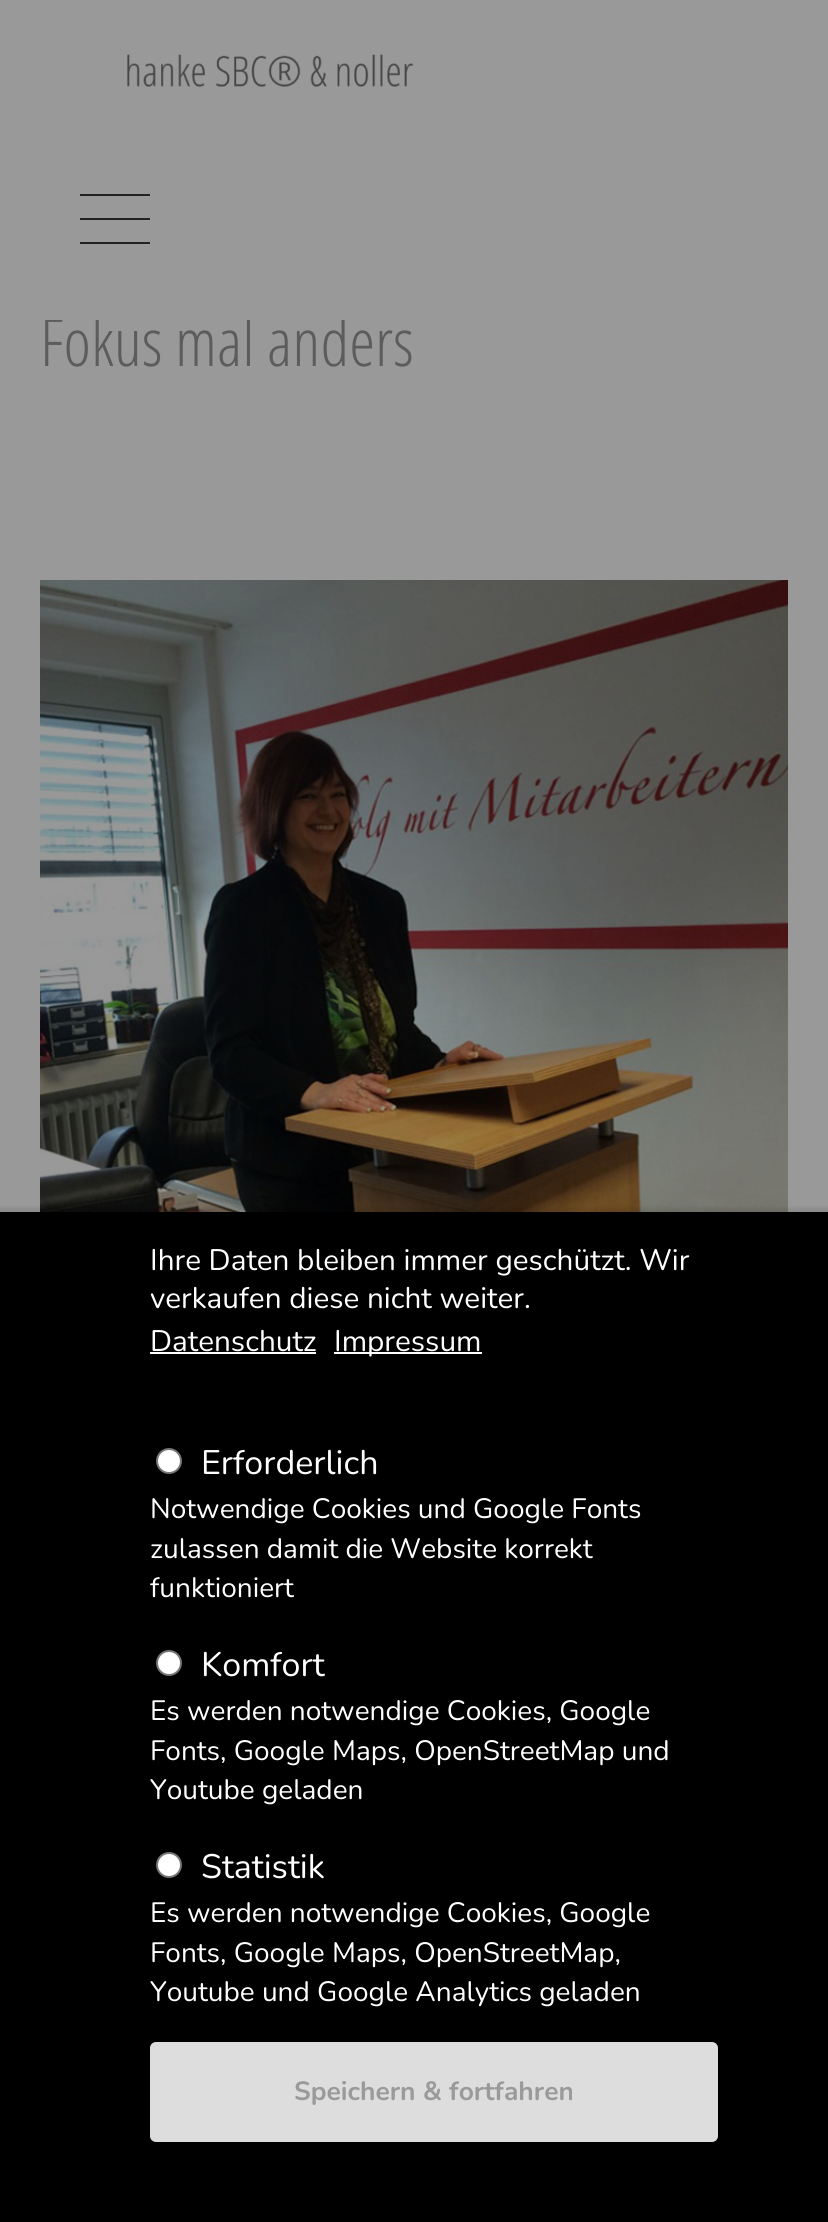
#include <cairo.h>
#include <math.h>
#include <stddef.h>

typedef struct { double x, y; const char *s; } line_t;
typedef struct { double x, y, w, h; unsigned color; } box_t;

static void ink(cairo_t *ctx, unsigned color) {
    cairo_set_source_rgb(ctx, (color >> 16) / 255.0, (color >> 8 & 255) / 255.0, (color & 255) / 255.0);
}

static void round_path(cairo_t *ctx, double x, double y, double w, double h, double r) {
    cairo_new_sub_path(ctx);
    cairo_arc(ctx, x + w - r, y + h - r, r, 0, M_PI / 2);
    cairo_arc(ctx, x + r, y + h - r, r, M_PI / 2, M_PI);
    cairo_arc(ctx, x + r, y + r, r, M_PI, 1.5 * M_PI);
    cairo_arc(ctx, x + w - r, y + r, r, 1.5 * M_PI, 2 * M_PI);
    cairo_close_path(ctx);
}

static void blur_box(cairo_t *ctx, double x, double y, double w, double h, double r, double blur, double alpha) {
    cairo_push_group_with_content(ctx, CAIRO_CONTENT_ALPHA);
    cairo_set_operator(ctx, CAIRO_OPERATOR_SOURCE);
    for (int i = 15; i >= -15 && fmin(w, h) + blur * i / 3 > 0; i -= 2) {
        double e = blur * i / 6;
        cairo_set_source_rgba(ctx, 0, 0, 0, alpha * erfc((i - 1) / 8.5) / 2);
        round_path(ctx, x - e, y - e, w + 2 * e, h + 2 * e, fmax(0, fmin(r + e + blur * .6, fmin(w, h) / 2 + e)));
        cairo_fill(ctx);
    }
    cairo_pattern_t *soft = cairo_pop_group(ctx);
    cairo_mask(ctx, soft);
    cairo_pattern_destroy(soft);
}

static void paste(cairo_t *ctx, const char *path, double x, double y, double w, double h) {
    cairo_surface_t *image = cairo_image_surface_create_from_png(path);
    cairo_save(ctx);
    cairo_set_source_surface(ctx, image, x, y);
    cairo_rectangle(ctx, x, y, w, h);
    cairo_fill(ctx);
    cairo_restore(ctx);
    cairo_surface_destroy(image);
}

int main(void) {
    cairo_surface_t *surface = cairo_image_surface_create(CAIRO_FORMAT_RGB24, 828, 2222);
    cairo_t *ctx = cairo_create(surface);
    cairo_font_options_t *options = cairo_font_options_create();
    cairo_font_options_set_hint_metrics(options, CAIRO_HINT_METRICS_OFF);
    cairo_font_options_set_hint_style(options, CAIRO_HINT_STYLE_NONE);
    cairo_set_font_options(ctx, options);
    cairo_set_miter_limit(ctx, 4);
    ink(ctx, 0x999999);
    cairo_paint(ctx);
    paste(ctx, "media/1.png", 127, 54, 287, 33);
    cairo_select_font_face(ctx, "Open Sans Light", CAIRO_FONT_SLANT_NORMAL, CAIRO_FONT_WEIGHT_NORMAL);
    cairo_set_font_size(ctx, 66);
    ink(ctx, 0x5C5C5C);
    cairo_move_to(ctx, 40, 366);
    cairo_show_text(ctx, "Fokus mal anders");
    {
        static const box_t items[] = {
            {45, 315, 300, 5, 0x999999},
            {80, 218, 70, 2, 0x222222},
            {80, 194, 70, 2, 0x222222},
            {80, 242, 70, 2, 0x222222},
        };
        for (size_t i = 0; i < sizeof items / sizeof *items; i++) {
            ink(ctx, items[i].color);
            cairo_rectangle(ctx, items[i].x, items[i].y, items[i].w, items[i].h);
            cairo_fill(ctx);
        }
    }
    paste(ctx, "media/2.png", 40, 580, 748, 632);
    ink(ctx, 0x000000);
    blur_box(ctx, -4, 1208, 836, 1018, 0, 2, 0.1);
    ink(ctx, 0x000000);
    cairo_rectangle(ctx, 0, 1212, 828, 1010);
    cairo_fill(ctx);
    cairo_select_font_face(ctx, "Nunito ExtraLight", CAIRO_FONT_SLANT_NORMAL, CAIRO_FONT_WEIGHT_NORMAL);
    cairo_set_font_size(ctx, 29.7);
    ink(ctx, 0xFFFFFF);
    {
        static const line_t items[] = {
            {150, 1270, "Ihre Daten bleiben immer geschützt. Wir"},
            {150, 1308, "verkaufen diese nicht weiter."},
            {150, 1351, "Datenschutz"},
        };
        for (size_t i = 0; i < sizeof items / sizeof *items; i++) {
            cairo_move_to(ctx, items[i].x, items[i].y);
            cairo_show_text(ctx, items[i].s);
        }
    }
    cairo_rectangle(ctx, 150, 1352, 166, 2);
    cairo_fill(ctx);
    cairo_rectangle(ctx, 334, 1352, 148, 2);
    cairo_fill(ctx);
    cairo_move_to(ctx, 334, 1351);
    cairo_show_text(ctx, "Impressum");
    cairo_new_path(ctx);
    cairo_arc(ctx, 169, 1461, 12, 0, 2 * M_PI);
    cairo_fill_preserve(ctx);
    ink(ctx, 0x767676);
    cairo_stroke(ctx);
    cairo_set_font_size(ctx, 34);
    ink(ctx, 0xFFFFFF);
    cairo_move_to(ctx, 201, 1474);
    cairo_show_text(ctx, "Erforderlich");
    cairo_set_font_size(ctx, 28);
    {
        static const line_t items[] = {
            {150, 1518, "Notwendige Cookies und Google Fonts"},
            {150, 1558, "zulassen damit die Website korrekt"},
            {150, 1597, "funktioniert"},
        };
        for (size_t i = 0; i < sizeof items / sizeof *items; i++) {
            cairo_move_to(ctx, items[i].x, items[i].y);
            cairo_show_text(ctx, items[i].s);
        }
    }
    cairo_new_path(ctx);
    cairo_arc(ctx, 169, 1663, 12, 0, 2 * M_PI);
    cairo_fill_preserve(ctx);
    ink(ctx, 0x767676);
    cairo_stroke(ctx);
    cairo_set_font_size(ctx, 34);
    ink(ctx, 0xFFFFFF);
    cairo_move_to(ctx, 201, 1676);
    cairo_show_text(ctx, "Komfort");
    cairo_set_font_size(ctx, 28);
    {
        static const line_t items[] = {
            {150, 1720, "Es werden notwendige Cookies, Google"},
            {150, 1760, "Fonts, Google Maps, OpenStreetMap und"},
            {150, 1799, "Youtube geladen"},
        };
        for (size_t i = 0; i < sizeof items / sizeof *items; i++) {
            cairo_move_to(ctx, items[i].x, items[i].y);
            cairo_show_text(ctx, items[i].s);
        }
    }
    cairo_new_path(ctx);
    cairo_arc(ctx, 169, 1865, 12, 0, 2 * M_PI);
    cairo_fill_preserve(ctx);
    ink(ctx, 0x767676);
    cairo_stroke(ctx);
    cairo_set_font_size(ctx, 34);
    ink(ctx, 0xFFFFFF);
    cairo_move_to(ctx, 201, 1878);
    cairo_show_text(ctx, "Statistik");
    cairo_set_font_size(ctx, 28);
    {
        static const line_t items[] = {
            {150, 1922, "Es werden notwendige Cookies, Google"},
            {150, 1962, "Fonts, Google Maps, OpenStreetMap,"},
            {150, 2001, "Youtube und Google Analytics geladen"},
        };
        for (size_t i = 0; i < sizeof items / sizeof *items; i++) {
            cairo_move_to(ctx, items[i].x, items[i].y);
            cairo_show_text(ctx, items[i].s);
        }
    }
    ink(ctx, 0xDDDDDD);
    round_path(ctx, 151, 2043, 566, 98, 5);
    cairo_fill_preserve(ctx);
    cairo_stroke(ctx);
    cairo_select_font_face(ctx, "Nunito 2 ExtraLight", CAIRO_FONT_SLANT_NORMAL, CAIRO_FONT_WEIGHT_NORMAL);
    cairo_set_font_size(ctx, 26.4);
    ink(ctx, 0x9A9A9A);
    cairo_move_to(ctx, 294, 2100);
    cairo_show_text(ctx, "Speichern & fortfahren");
    cairo_surface_write_to_png(surface, "image.png");
    cairo_font_options_destroy(options);
    cairo_destroy(ctx);
    cairo_surface_destroy(surface);
    return 0;
}
